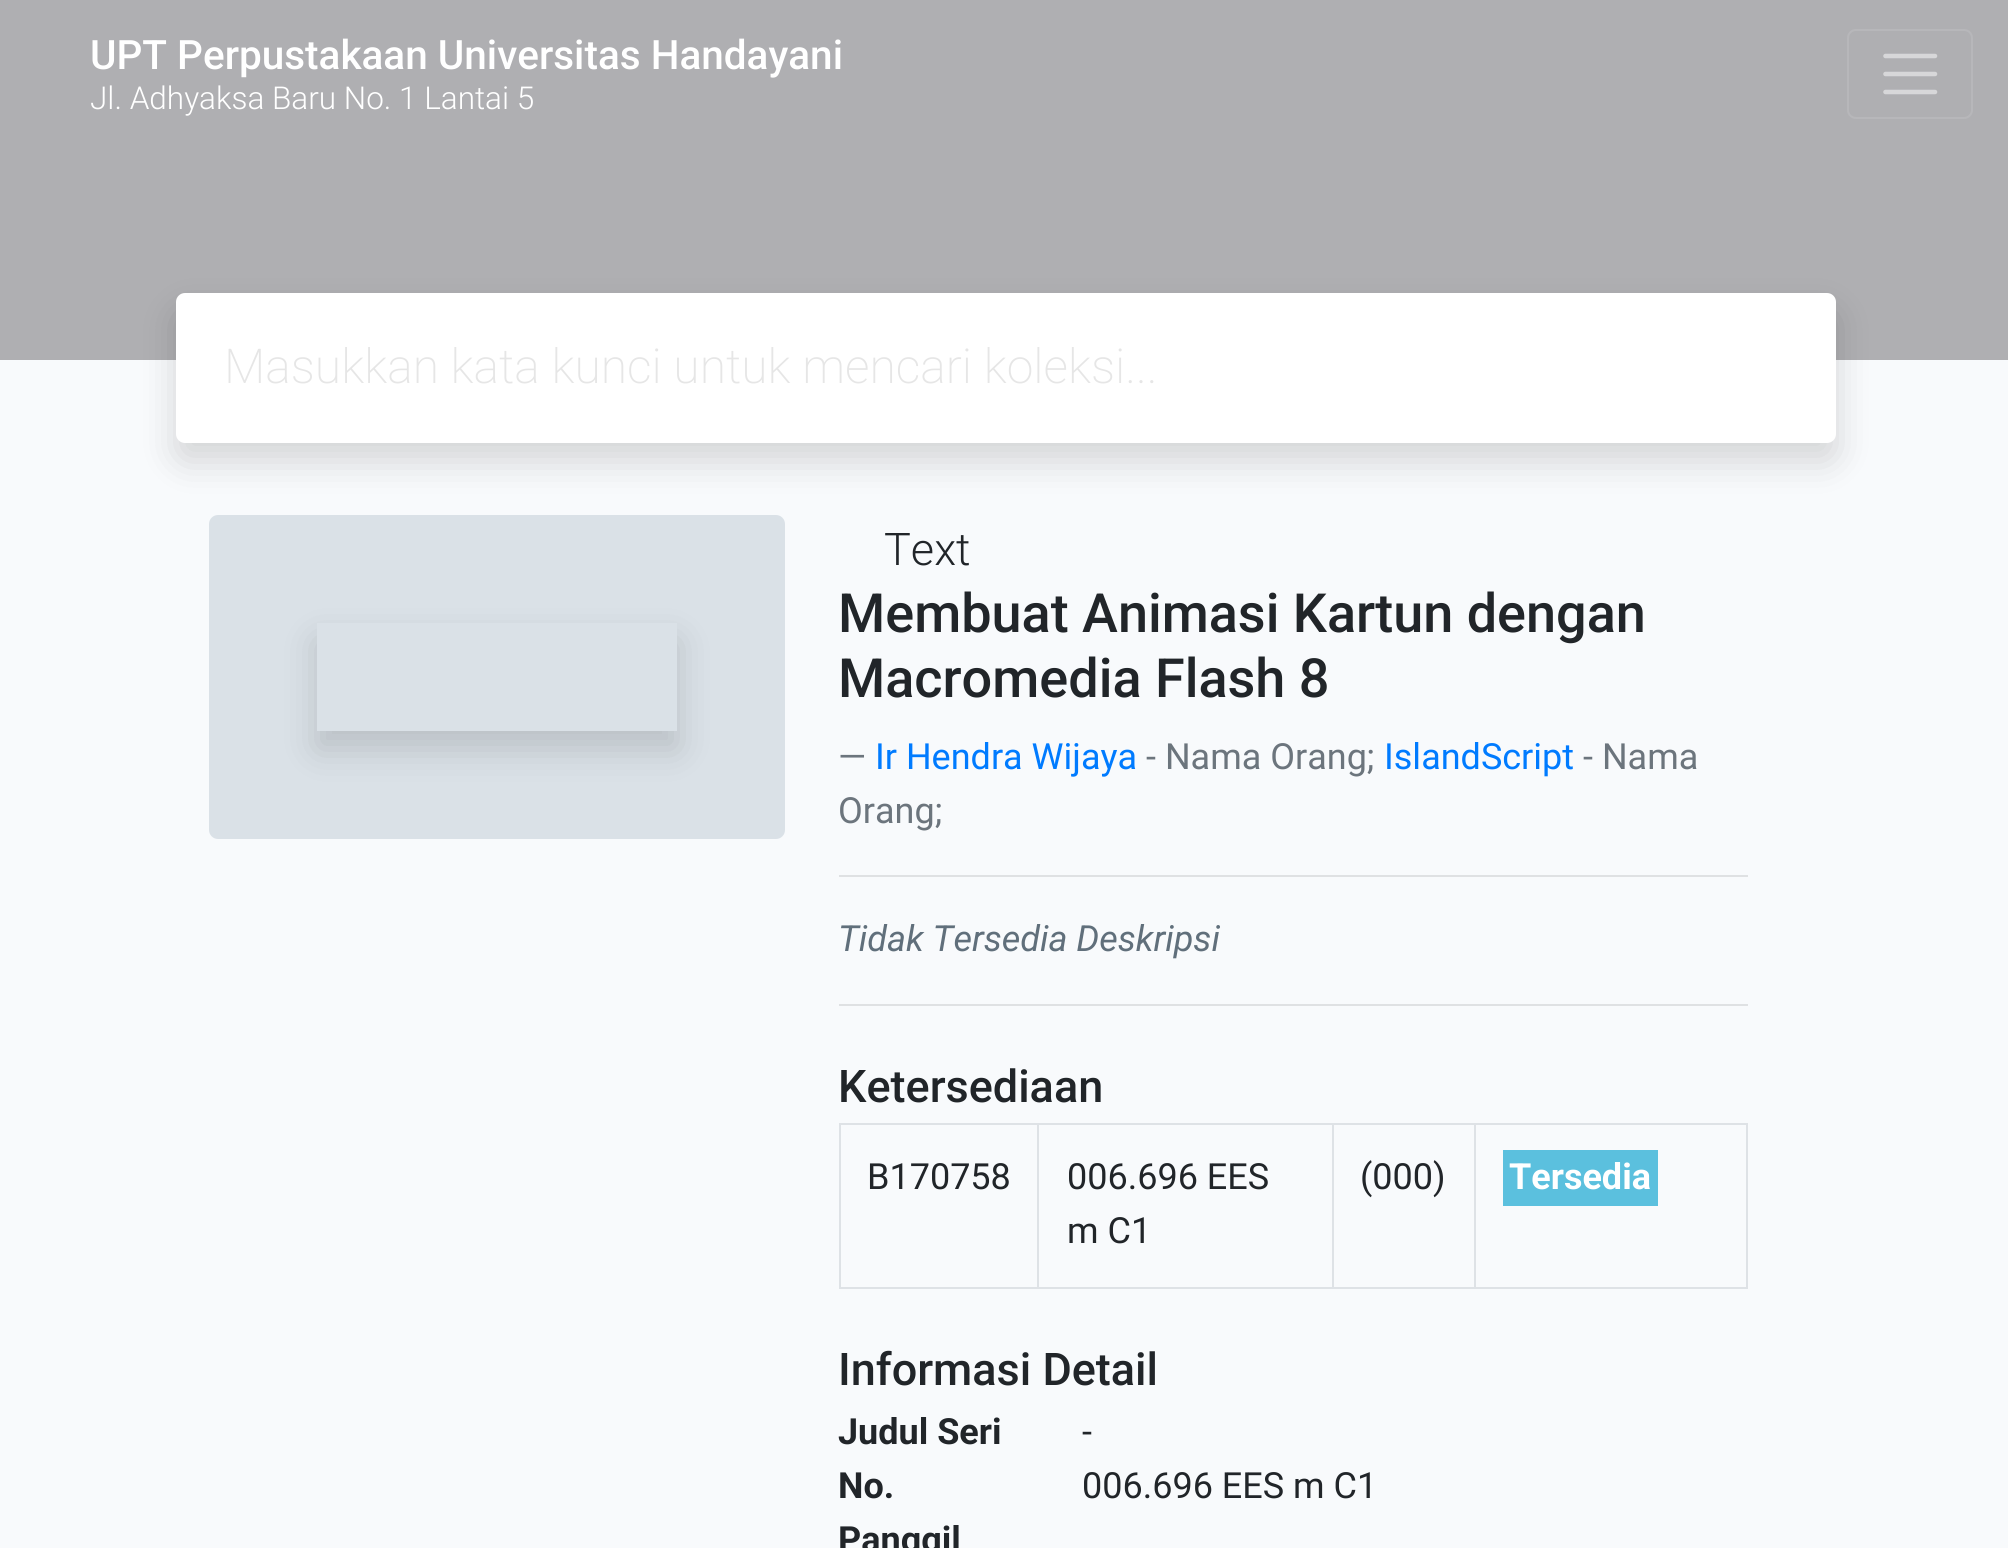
#include <cairo.h>
#include <math.h>
#include <stddef.h>

typedef struct { double x, y, w, h; unsigned color; } box_t;

static void ink(cairo_t *ctx, unsigned color) {
    cairo_set_source_rgb(ctx, (color >> 16) / 255.0, (color >> 8 & 255) / 255.0, (color & 255) / 255.0);
}

static void round_path(cairo_t *ctx, double x, double y, double w, double h, double r) {
    cairo_new_sub_path(ctx);
    cairo_arc(ctx, x + w - r, y + h - r, r, 0, M_PI / 2);
    cairo_arc(ctx, x + r, y + h - r, r, M_PI / 2, M_PI);
    cairo_arc(ctx, x + r, y + r, r, M_PI, 1.5 * M_PI);
    cairo_arc(ctx, x + w - r, y + r, r, 1.5 * M_PI, 2 * M_PI);
    cairo_close_path(ctx);
}

static void blur_box(cairo_t *ctx, double x, double y, double w, double h, double r, double blur, double alpha) {
    cairo_push_group_with_content(ctx, CAIRO_CONTENT_ALPHA);
    cairo_set_operator(ctx, CAIRO_OPERATOR_SOURCE);
    for (int i = 15; i >= -15 && fmin(w, h) + blur * i / 3 > 0; i -= 2) {
        double e = blur * i / 6;
        cairo_set_source_rgba(ctx, 0, 0, 0, alpha * erfc((i - 1) / 8.5) / 2);
        round_path(ctx, x - e, y - e, w + 2 * e, h + 2 * e, fmax(0, fmin(r + e + blur * .6, fmin(w, h) / 2 + e)));
        cairo_fill(ctx);
    }
    cairo_pattern_t *soft = cairo_pop_group(ctx);
    cairo_mask(ctx, soft);
    cairo_pattern_destroy(soft);
}

int main(void) {
    cairo_surface_t *surface = cairo_image_surface_create(CAIRO_FORMAT_RGB24, 2008, 1548);
    cairo_t *ctx = cairo_create(surface);
    cairo_font_options_t *options = cairo_font_options_create();
    cairo_font_options_set_hint_metrics(options, CAIRO_HINT_METRICS_OFF);
    cairo_font_options_set_hint_style(options, CAIRO_HINT_STYLE_NONE);
    cairo_set_font_options(ctx, options);
    cairo_set_miter_limit(ctx, 4);
    ink(ctx, 0xF8FAFC);
    cairo_paint(ctx);
    ink(ctx, 0xAFAFB2);
    cairo_rectangle(ctx, 0, 0, 2008, 360);
    cairo_fill(ctx);
    cairo_select_font_face(ctx, "Roboto Medium", CAIRO_FONT_SLANT_NORMAL, CAIRO_FONT_WEIGHT_NORMAL);
    cairo_set_font_size(ctx, 40.5);
    ink(ctx, 0xFFFFFF);
    cairo_move_to(ctx, 90, 69);
    cairo_show_text(ctx, "UPT Perpustakaan Universitas Handayani");
    cairo_select_font_face(ctx, "Roboto Light", CAIRO_FONT_SLANT_NORMAL, CAIRO_FONT_WEIGHT_NORMAL);
    cairo_set_font_size(ctx, 31.5);
    cairo_move_to(ctx, 90, 109);
    cairo_show_text(ctx, "Jl. Adhyaksa Baru No. 1 Lantai 5");
    round_path(ctx, 1848, 30, 124, 88, 8);
    ink(ctx, 0xB7B7BA);
    cairo_stroke(ctx);
    cairo_new_path(ctx);
    cairo_move_to(ctx, 1885.5, 56);
    cairo_line_to(ctx, 1935, 56);
    cairo_move_to(ctx, 1885.5, 74);
    cairo_line_to(ctx, 1935, 74);
    cairo_move_to(ctx, 1885.5, 92);
    cairo_line_to(ctx, 1935, 92);
    ink(ctx, 0xD7D7D9);
    cairo_set_line_width(ctx, 4.5);
    cairo_set_line_cap(ctx, CAIRO_LINE_CAP_ROUND);
    cairo_stroke(ctx);
    ink(ctx, 0xDAE1E7);
    round_path(ctx, 209, 515, 576, 324, 9);
    cairo_fill(ctx);
    ink(ctx, 0x000000);
    blur_box(ctx, 176, 311, 1660, 150, 9, 18, 0.15);
    ink(ctx, 0xFFFFFF);
    round_path(ctx, 176, 293, 1660, 150, 9);
    cairo_fill(ctx);
    cairo_select_font_face(ctx, "Roboto ExtraLight", CAIRO_FONT_SLANT_NORMAL, CAIRO_FONT_WEIGHT_NORMAL);
    cairo_set_font_size(ctx, 48);
    ink(ctx, 0xE6E6E6);
    cairo_move_to(ctx, 224, 383);
    cairo_show_text(ctx, "Masukkan kata kunci untuk mencari koleksi...");
    cairo_save(ctx);
    cairo_set_fill_rule(ctx, CAIRO_FILL_RULE_EVEN_ODD);
    cairo_new_path(ctx);
    cairo_move_to(ctx, 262, 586);
    cairo_line_to(ctx, 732, 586);
    cairo_line_to(ctx, 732, 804);
    cairo_line_to(ctx, 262, 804);
    cairo_close_path(ctx);
    cairo_move_to(ctx, 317, 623);
    cairo_line_to(ctx, 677, 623);
    cairo_line_to(ctx, 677, 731);
    cairo_line_to(ctx, 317, 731);
    cairo_close_path(ctx);
    cairo_clip(ctx);
    ink(ctx, 0x000000);
    blur_box(ctx, 317, 641, 360, 108, 0, 18, 0.15);
    cairo_restore(ctx);
    cairo_select_font_face(ctx, "Roboto Light", CAIRO_FONT_SLANT_NORMAL, CAIRO_FONT_WEIGHT_NORMAL);
    cairo_set_font_size(ctx, 45);
    ink(ctx, 0x212529);
    cairo_move_to(ctx, 884, 565);
    cairo_show_text(ctx, "Text");
    cairo_select_font_face(ctx, "Roboto Medium", CAIRO_FONT_SLANT_NORMAL, CAIRO_FONT_WEIGHT_NORMAL);
    cairo_set_font_size(ctx, 54);
    cairo_move_to(ctx, 838, 632);
    cairo_show_text(ctx, "Membuat Animasi Kartun dengan");
    cairo_move_to(ctx, 838, 697);
    cairo_show_text(ctx, "Macromedia Flash 8");
    cairo_select_font_face(ctx, "Roboto", CAIRO_FONT_SLANT_NORMAL, CAIRO_FONT_WEIGHT_NORMAL);
    cairo_set_font_size(ctx, 36);
    ink(ctx, 0x6C757D);
    cairo_move_to(ctx, 838, 769);
    cairo_show_text(ctx, "—");
    ink(ctx, 0x007BFF);
    cairo_move_to(ctx, 875, 769);
    cairo_show_text(ctx, "Ir Hendra Wijaya");
    ink(ctx, 0x6C757D);
    cairo_move_to(ctx, 1146, 769);
    cairo_show_text(ctx, "- Nama Orang;");
    ink(ctx, 0x007BFF);
    cairo_move_to(ctx, 1384, 769);
    cairo_show_text(ctx, "IslandScript");
    ink(ctx, 0x6C757D);
    cairo_move_to(ctx, 1583, 769);
    cairo_show_text(ctx, "- Nama");
    cairo_move_to(ctx, 838, 823);
    cairo_show_text(ctx, "Orang;");
    ink(ctx, 0xDFE1E3);
    cairo_rectangle(ctx, 839, 875, 909, 2);
    cairo_fill(ctx);
    cairo_select_font_face(ctx, "Roboto", CAIRO_FONT_SLANT_ITALIC, CAIRO_FONT_WEIGHT_NORMAL);
    ink(ctx, 0x606F7B);
    cairo_move_to(ctx, 838, 951);
    cairo_show_text(ctx, "Tidak Tersedia Deskripsi");
    ink(ctx, 0xDFE1E3);
    cairo_rectangle(ctx, 839, 1004, 909, 2);
    cairo_fill(ctx);
    cairo_select_font_face(ctx, "Roboto Medium", CAIRO_FONT_SLANT_NORMAL, CAIRO_FONT_WEIGHT_NORMAL);
    cairo_set_font_size(ctx, 45);
    ink(ctx, 0x212529);
    cairo_move_to(ctx, 838, 1102);
    cairo_show_text(ctx, "Ketersediaan");
    {
        static const box_t items[] = {
            {839, 1123, 909, 2, 0xDEE2E6},
            {1746, 1123, 2, 166, 0xDEE2E6},
            {839, 1287, 909, 2, 0xDEE2E6},
            {839, 1123, 2, 166, 0xDEE2E6},
        };
        for (size_t i = 0; i < sizeof items / sizeof *items; i++) {
            ink(ctx, items[i].color);
            cairo_rectangle(ctx, items[i].x, items[i].y, items[i].w, items[i].h);
            cairo_fill(ctx);
        }
    }
    cairo_select_font_face(ctx, "Roboto", CAIRO_FONT_SLANT_NORMAL, CAIRO_FONT_WEIGHT_NORMAL);
    cairo_set_font_size(ctx, 36);
    ink(ctx, 0x212529);
    cairo_move_to(ctx, 867, 1189);
    cairo_show_text(ctx, "B170758");
    ink(ctx, 0xDEE2E6);
    cairo_rectangle(ctx, 1037, 1123, 2, 166);
    cairo_fill(ctx);
    ink(ctx, 0x212529);
    cairo_move_to(ctx, 1067, 1189);
    cairo_show_text(ctx, "006.696 EES");
    cairo_move_to(ctx, 1067, 1243);
    cairo_show_text(ctx, "m C1");
    ink(ctx, 0xDEE2E6);
    cairo_rectangle(ctx, 1332, 1123, 2, 166);
    cairo_fill(ctx);
    ink(ctx, 0x212529);
    cairo_move_to(ctx, 1360, 1189);
    cairo_show_text(ctx, "(000)");
    ink(ctx, 0xDEE2E6);
    cairo_rectangle(ctx, 1474, 1123, 2, 166);
    cairo_fill(ctx);
    ink(ctx, 0x5BC0DE);
    cairo_rectangle(ctx, 1503, 1150, 155, 56);
    cairo_fill(ctx);
    cairo_select_font_face(ctx, "Roboto", CAIRO_FONT_SLANT_NORMAL, CAIRO_FONT_WEIGHT_BOLD);
    ink(ctx, 0xFFFFFF);
    cairo_move_to(ctx, 1509, 1189);
    cairo_show_text(ctx, "Tersedia");
    cairo_select_font_face(ctx, "Roboto Medium", CAIRO_FONT_SLANT_NORMAL, CAIRO_FONT_WEIGHT_NORMAL);
    cairo_set_font_size(ctx, 45);
    ink(ctx, 0x212529);
    cairo_move_to(ctx, 838, 1385);
    cairo_show_text(ctx, "Informasi Detail");
    cairo_select_font_face(ctx, "Roboto", CAIRO_FONT_SLANT_NORMAL, CAIRO_FONT_WEIGHT_BOLD);
    cairo_set_font_size(ctx, 36);
    cairo_move_to(ctx, 838, 1444);
    cairo_show_text(ctx, "Judul Seri");
    cairo_select_font_face(ctx, "Roboto", CAIRO_FONT_SLANT_NORMAL, CAIRO_FONT_WEIGHT_NORMAL);
    cairo_move_to(ctx, 1082, 1444);
    cairo_show_text(ctx, "-");
    cairo_select_font_face(ctx, "Roboto", CAIRO_FONT_SLANT_NORMAL, CAIRO_FONT_WEIGHT_BOLD);
    cairo_move_to(ctx, 838, 1498);
    cairo_show_text(ctx, "No.");
    cairo_move_to(ctx, 838, 1552);
    cairo_show_text(ctx, "Panggil");
    cairo_select_font_face(ctx, "Roboto", CAIRO_FONT_SLANT_NORMAL, CAIRO_FONT_WEIGHT_NORMAL);
    cairo_move_to(ctx, 1082, 1498);
    cairo_show_text(ctx, "006.696 EES m C1");
    cairo_surface_write_to_png(surface, "image.png");
    cairo_font_options_destroy(options);
    cairo_destroy(ctx);
    cairo_surface_destroy(surface);
    return 0;
}
